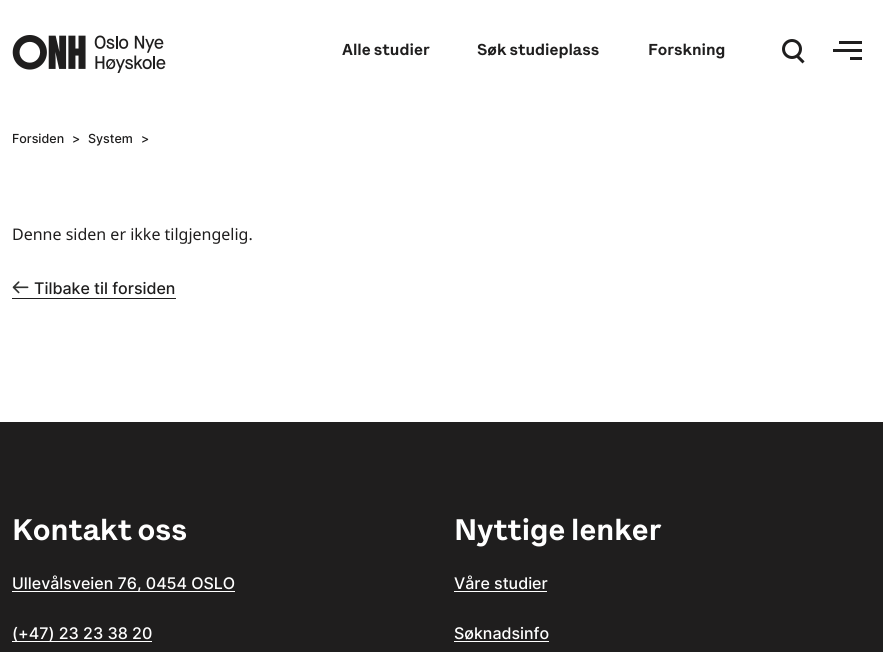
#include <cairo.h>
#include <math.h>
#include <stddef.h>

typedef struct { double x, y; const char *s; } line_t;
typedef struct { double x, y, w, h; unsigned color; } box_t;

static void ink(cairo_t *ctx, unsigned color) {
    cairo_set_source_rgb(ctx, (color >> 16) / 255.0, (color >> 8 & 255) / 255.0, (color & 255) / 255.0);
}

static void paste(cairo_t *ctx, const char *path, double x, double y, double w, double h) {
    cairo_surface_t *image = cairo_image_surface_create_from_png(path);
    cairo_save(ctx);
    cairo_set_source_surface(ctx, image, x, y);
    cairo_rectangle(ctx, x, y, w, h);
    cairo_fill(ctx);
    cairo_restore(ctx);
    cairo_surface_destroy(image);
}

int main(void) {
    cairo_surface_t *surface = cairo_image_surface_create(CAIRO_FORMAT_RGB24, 883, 652);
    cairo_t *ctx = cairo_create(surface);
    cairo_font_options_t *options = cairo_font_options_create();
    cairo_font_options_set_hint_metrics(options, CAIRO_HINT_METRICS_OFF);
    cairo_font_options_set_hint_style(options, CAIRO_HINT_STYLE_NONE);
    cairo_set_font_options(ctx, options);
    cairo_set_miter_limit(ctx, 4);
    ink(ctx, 0xFFFFFF);
    cairo_paint(ctx);
    paste(ctx, "media/1.png", 12, 35, 154, 38);
    cairo_select_font_face(ctx, "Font", CAIRO_FONT_SLANT_NORMAL, CAIRO_FONT_WEIGHT_BOLD);
    cairo_set_font_size(ctx, 16);
    ink(ctx, 0x1F1E1E);
    {
        static const line_t items[] = {
            {342, 55, "Alle studier"},
            {477, 55, "Søk studieplass"},
            {648, 55, "Forskning"},
        };
        for (size_t i = 0; i < sizeof items / sizeof *items; i++) {
            cairo_move_to(ctx, items[i].x, items[i].y);
            cairo_show_text(ctx, items[i].s);
        }
    }
    paste(ctx, "media/2.png", 782, 39, 23, 25);
    {
        static const box_t items[] = {
            {839, 41, 23, 3, 0x1F1E1E},
            {850, 57, 12, 3, 0x1F1E1E},
            {833, 49, 29, 3, 0x1F1E1E},
        };
        for (size_t i = 0; i < sizeof items / sizeof *items; i++) {
            ink(ctx, items[i].color);
            cairo_rectangle(ctx, items[i].x, items[i].y, items[i].w, items[i].h);
            cairo_fill(ctx);
        }
    }
    cairo_select_font_face(ctx, "Inter Medium", CAIRO_FONT_SLANT_NORMAL, CAIRO_FONT_WEIGHT_NORMAL);
    cairo_set_font_size(ctx, 12.5);
    {
        static const line_t items[] = {
            {12, 143, "Forsiden"},
            {72, 143, ">"},
            {88, 143, "System"},
            {141, 143, ">"},
        };
        for (size_t i = 0; i < sizeof items / sizeof *items; i++) {
            cairo_move_to(ctx, items[i].x, items[i].y);
            cairo_show_text(ctx, items[i].s);
        }
    }
    cairo_select_font_face(ctx, "Noto Sans", CAIRO_FONT_SLANT_NORMAL, CAIRO_FONT_WEIGHT_NORMAL);
    cairo_set_font_size(ctx, 16);
    cairo_move_to(ctx, 12, 240);
    cairo_show_text(ctx, "Denne siden er ikke tilgjengelig.");
    paste(ctx, "media/3.png", 12, 281, 17, 13);
    cairo_select_font_face(ctx, "Inter Medium", CAIRO_FONT_SLANT_NORMAL, CAIRO_FONT_WEIGHT_NORMAL);
    cairo_move_to(ctx, 34, 294);
    cairo_show_text(ctx, "Tilbake til forsiden");
    cairo_rectangle(ctx, 12, 298, 164, 1);
    cairo_fill(ctx);
    cairo_rectangle(ctx, 0, 422, 883, 230);
    cairo_fill(ctx);
    cairo_select_font_face(ctx, "Font", CAIRO_FONT_SLANT_NORMAL, CAIRO_FONT_WEIGHT_BOLD);
    cairo_set_font_size(ctx, 30);
    ink(ctx, 0xFFFFFF);
    cairo_move_to(ctx, 12, 540);
    cairo_show_text(ctx, "Kontakt oss");
    cairo_rectangle(ctx, 12, 591, 223, 1);
    cairo_fill(ctx);
    cairo_select_font_face(ctx, "Inter Medium", CAIRO_FONT_SLANT_NORMAL, CAIRO_FONT_WEIGHT_NORMAL);
    cairo_set_font_size(ctx, 16);
    cairo_move_to(ctx, 12, 589);
    cairo_show_text(ctx, "Ullevålsveien 76, 0454 OSLO");
    cairo_move_to(ctx, 12, 639);
    cairo_show_text(ctx, "(+47) 23 23 38 20");
    cairo_rectangle(ctx, 12, 641, 140, 1);
    cairo_fill(ctx);
    cairo_select_font_face(ctx, "Font", CAIRO_FONT_SLANT_NORMAL, CAIRO_FONT_WEIGHT_BOLD);
    cairo_set_font_size(ctx, 30);
    cairo_move_to(ctx, 454, 540);
    cairo_show_text(ctx, "Nyttige lenker");
    cairo_select_font_face(ctx, "Inter Medium", CAIRO_FONT_SLANT_NORMAL, CAIRO_FONT_WEIGHT_NORMAL);
    cairo_set_font_size(ctx, 16);
    cairo_move_to(ctx, 454, 589);
    cairo_show_text(ctx, "Våre studier");
    cairo_rectangle(ctx, 454, 591, 93, 1);
    cairo_fill(ctx);
    cairo_move_to(ctx, 454, 639);
    cairo_show_text(ctx, "Søknadsinfo");
    cairo_rectangle(ctx, 454, 641, 95, 1);
    cairo_fill(ctx);
    cairo_surface_write_to_png(surface, "image.png");
    cairo_font_options_destroy(options);
    cairo_destroy(ctx);
    cairo_surface_destroy(surface);
    return 0;
}
